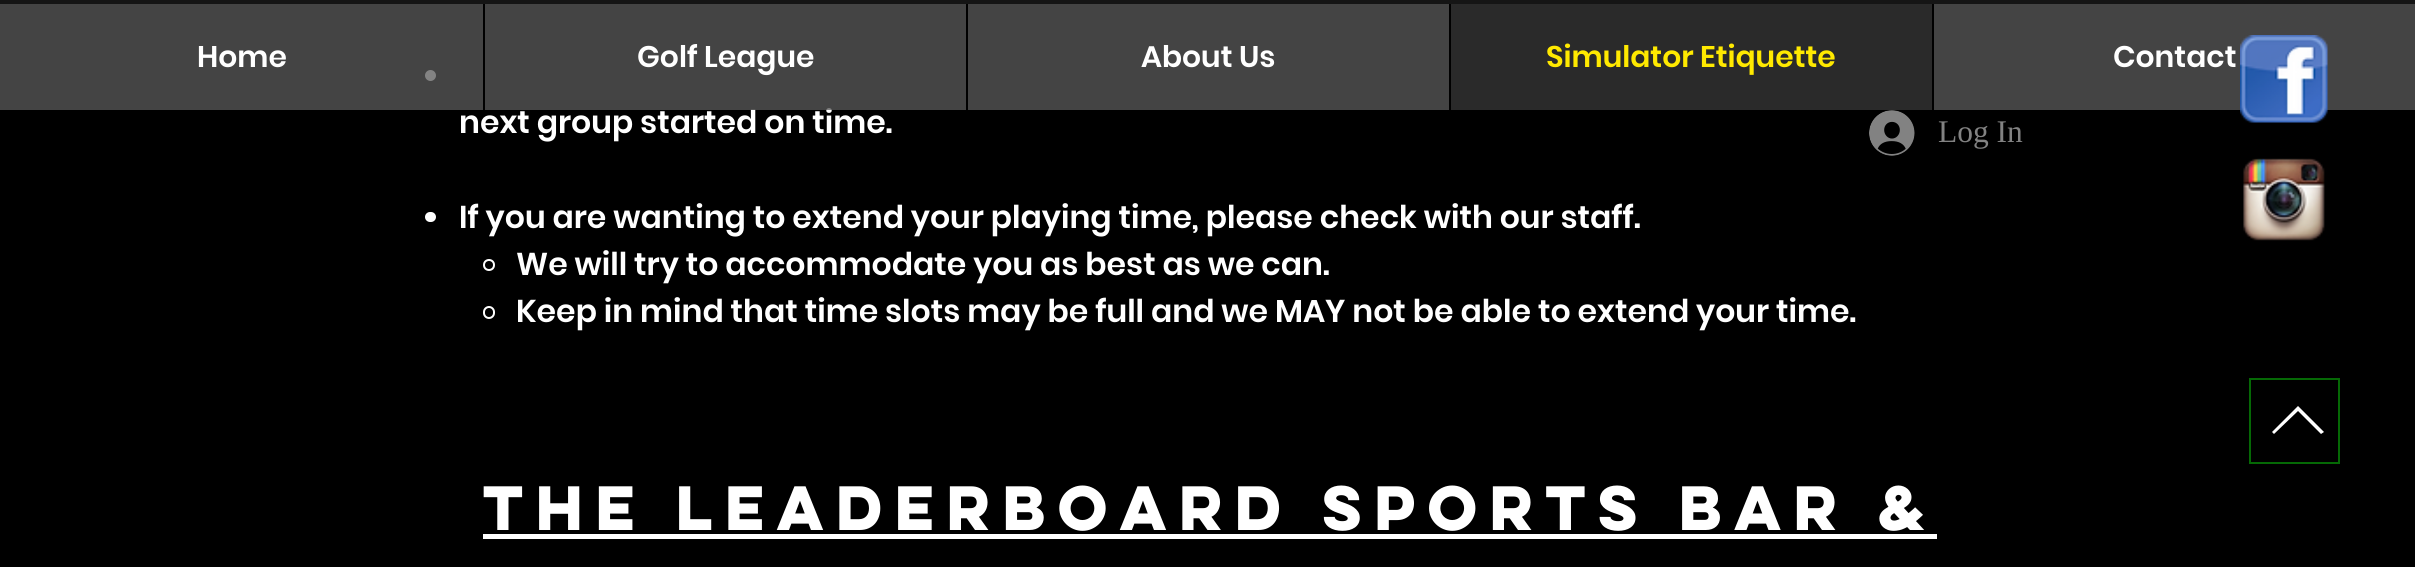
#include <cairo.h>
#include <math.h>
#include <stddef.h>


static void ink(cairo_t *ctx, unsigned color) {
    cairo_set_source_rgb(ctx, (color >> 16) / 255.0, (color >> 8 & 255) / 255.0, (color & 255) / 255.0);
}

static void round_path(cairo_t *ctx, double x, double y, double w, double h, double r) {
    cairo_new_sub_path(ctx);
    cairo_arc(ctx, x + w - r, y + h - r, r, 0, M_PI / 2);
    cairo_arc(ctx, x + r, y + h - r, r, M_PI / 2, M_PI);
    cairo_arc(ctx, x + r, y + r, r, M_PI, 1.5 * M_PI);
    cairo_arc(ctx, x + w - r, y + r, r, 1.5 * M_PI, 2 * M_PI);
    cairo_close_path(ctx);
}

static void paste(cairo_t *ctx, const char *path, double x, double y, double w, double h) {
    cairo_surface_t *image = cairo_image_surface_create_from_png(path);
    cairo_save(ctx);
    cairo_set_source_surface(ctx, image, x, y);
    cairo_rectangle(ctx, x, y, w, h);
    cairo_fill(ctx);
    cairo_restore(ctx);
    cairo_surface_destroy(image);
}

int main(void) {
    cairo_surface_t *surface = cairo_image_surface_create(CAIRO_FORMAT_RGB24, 2415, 567);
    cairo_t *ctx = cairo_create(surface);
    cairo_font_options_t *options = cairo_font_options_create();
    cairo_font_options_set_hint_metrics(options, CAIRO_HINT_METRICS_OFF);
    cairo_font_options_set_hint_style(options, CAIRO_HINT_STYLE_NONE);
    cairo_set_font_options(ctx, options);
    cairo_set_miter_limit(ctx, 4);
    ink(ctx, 0x000000);
    cairo_paint(ctx);
    ink(ctx, 0xFFFFFF);
    cairo_arc(ctx, 430.5, 75.5, 5.5, 0, 2 * M_PI);
    cairo_fill(ctx);
    cairo_select_font_face(ctx, "Poppins SemiBold", CAIRO_FONT_SLANT_NORMAL, CAIRO_FONT_WEIGHT_NORMAL);
    cairo_set_font_size(ctx, 31.5);
    cairo_move_to(ctx, 459, 133);
    cairo_show_text(ctx, "next group started on time.");
    cairo_set_source_rgba(ctx, 0.137, 0.137, 0.137, 0.6);
    cairo_rectangle(ctx, 0, 0, 2415, 110);
    cairo_fill(ctx);
    cairo_set_source_rgba(ctx, 0.569, 0.569, 0.569, 0.38);
    cairo_rectangle(ctx, 0, 4, 2415, 106);
    cairo_fill(ctx);
    cairo_set_font_size(ctx, 29.75);
    ink(ctx, 0xFFFFFF);
    cairo_move_to(ctx, 197, 67);
    cairo_show_text(ctx, "Home");
    ink(ctx, 0x000000);
    cairo_rectangle(ctx, 483, 4, 2, 106);
    cairo_fill(ctx);
    ink(ctx, 0xFFFFFF);
    cairo_move_to(ctx, 637, 67);
    cairo_show_text(ctx, "Golf League");
    ink(ctx, 0x000000);
    cairo_rectangle(ctx, 966, 4, 2, 106);
    cairo_fill(ctx);
    ink(ctx, 0xFFFFFF);
    cairo_move_to(ctx, 1141, 67);
    cairo_show_text(ctx, "About Us");
    cairo_set_source_rgba(ctx, 0, 0, 0, 0.38);
    cairo_rectangle(ctx, 1451, 4, 481, 106);
    cairo_fill(ctx);
    ink(ctx, 0x000000);
    cairo_rectangle(ctx, 1449, 4, 2, 106);
    cairo_fill(ctx);
    ink(ctx, 0xFFE900);
    cairo_move_to(ctx, 1546, 67);
    cairo_show_text(ctx, "Simulator Etiquette");
    ink(ctx, 0x000000);
    cairo_rectangle(ctx, 1932, 4, 2, 106);
    cairo_fill(ctx);
    ink(ctx, 0xFFFFFF);
    cairo_move_to(ctx, 2113, 67);
    cairo_show_text(ctx, "Contact");
    paste(ctx, "media/1.png", 1869, 110, 46, 46);
    cairo_select_font_face(ctx, "Liberation Serif", CAIRO_FONT_SLANT_NORMAL, CAIRO_FONT_WEIGHT_NORMAL);
    cairo_set_font_size(ctx, 31.5);
    ink(ctx, 0x828282);
    cairo_move_to(ctx, 1938, 142);
    cairo_show_text(ctx, "Log In");
    paste(ctx, "media/2.png", 2240, 35, 88, 88);
    paste(ctx, "media/3.png", 2243, 158, 82, 83);
    ink(ctx, 0xFFFFFF);
    round_path(ctx, 425, 212, 11, 10, 5);
    cairo_fill(ctx);
    cairo_select_font_face(ctx, "Poppins SemiBold", CAIRO_FONT_SLANT_NORMAL, CAIRO_FONT_WEIGHT_NORMAL);
    cairo_move_to(ctx, 459, 228);
    cairo_show_text(ctx, "If you are wanting to extend your playing time, please check with our staff.");
    cairo_new_path(ctx);
    cairo_arc(ctx, 489, 265, 5, 0, 2 * M_PI);
    cairo_stroke(ctx);
    cairo_move_to(ctx, 516, 275);
    cairo_show_text(ctx, "We will try to accommodate you as best as we can.");
    round_path(ctx, 484, 307, 10, 11, 5);
    cairo_stroke(ctx);
    cairo_move_to(ctx, 516, 322);
    cairo_show_text(ctx, "Keep in mind that time slots may be full and we MAY not be able to extend your time.");
    cairo_rectangle(ctx, 2250, 379, 89, 84);
    ink(ctx, 0x056905);
    cairo_stroke(ctx);
    ink(ctx, 0xFFFFFF);
    cairo_new_path(ctx);
    cairo_move_to(ctx, 2272, 432);
    cairo_line_to(ctx, 2274, 434);
    cairo_line_to(ctx, 2298, 411);
    cairo_line_to(ctx, 2321, 434);
    cairo_line_to(ctx, 2324, 432);
    cairo_line_to(ctx, 2298, 406);
    cairo_close_path(ctx);
    cairo_fill(ctx);
    cairo_select_font_face(ctx, "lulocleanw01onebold", CAIRO_FONT_SLANT_NORMAL, CAIRO_FONT_WEIGHT_BOLD);
    cairo_set_font_size(ctx, 56);
    cairo_move_to(ctx, 483, 530);
    cairo_show_text(ctx, "The Leaderboard Sports Bar &");
    cairo_rectangle(ctx, 483, 534, 1454, 5);
    cairo_fill(ctx);
    cairo_surface_write_to_png(surface, "image.png");
    cairo_font_options_destroy(options);
    cairo_destroy(ctx);
    cairo_surface_destroy(surface);
    return 0;
}
